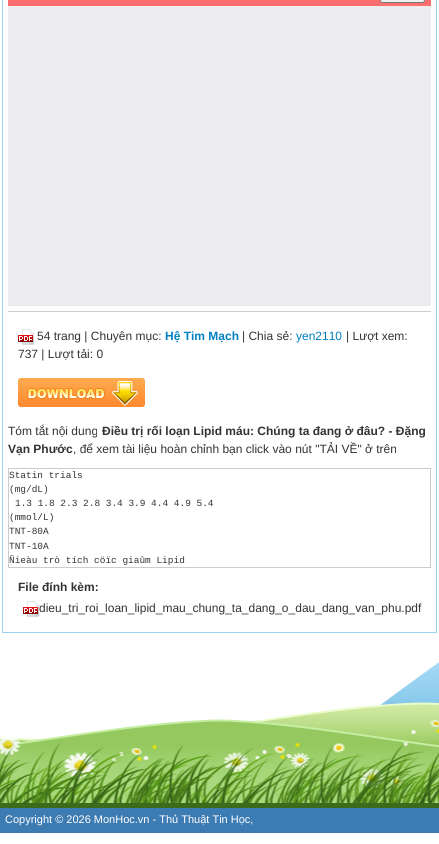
#include <cairo.h>
#include <math.h>
#include <stddef.h>

typedef struct { double x, y; const char *s; } line_t;
typedef struct { double x, y, w, h; unsigned color; } box_t;

static void ink(cairo_t *ctx, unsigned color) {
    cairo_set_source_rgb(ctx, (color >> 16) / 255.0, (color >> 8 & 255) / 255.0, (color & 255) / 255.0);
}

static void paste(cairo_t *ctx, const char *path, double x, double y, double w, double h) {
    cairo_surface_t *image = cairo_image_surface_create_from_png(path);
    cairo_save(ctx);
    cairo_set_source_surface(ctx, image, x, y);
    cairo_rectangle(ctx, x, y, w, h);
    cairo_fill(ctx);
    cairo_restore(ctx);
    cairo_surface_destroy(image);
}

int main(void) {
    cairo_surface_t *surface = cairo_image_surface_create(CAIRO_FORMAT_RGB24, 439, 844);
    cairo_t *ctx = cairo_create(surface);
    cairo_font_options_t *options = cairo_font_options_create();
    cairo_font_options_set_hint_metrics(options, CAIRO_HINT_METRICS_OFF);
    cairo_font_options_set_hint_style(options, CAIRO_HINT_STYLE_NONE);
    cairo_set_font_options(ctx, options);
    cairo_set_miter_limit(ctx, 4);
    ink(ctx, 0xFFFFFF);
    cairo_paint(ctx);
    {
        static const box_t items[] = {
            {436, 0, 1, 633, 0x99D1EF},
            {2, 632, 435, 1, 0x99D1EF},
            {2, 0, 1, 633, 0x99D1EF},
            {8, 311, 423, 1, 0xCCCCCC},
        };
        for (size_t i = 0; i < sizeof items / sizeof *items; i++) {
            ink(ctx, items[i].color);
            cairo_rectangle(ctx, items[i].x, items[i].y, items[i].w, items[i].h);
            cairo_fill(ctx);
        }
    }
    paste(ctx, "media/1.png", 8, 0, 423, 306);
    paste(ctx, "media/2.png", 18, 329, 16, 16);
    cairo_select_font_face(ctx, "Liberation Sans", CAIRO_FONT_SLANT_NORMAL, CAIRO_FONT_WEIGHT_NORMAL);
    cairo_set_font_size(ctx, 12);
    ink(ctx, 0x333333);
    cairo_move_to(ctx, 37, 340);
    cairo_show_text(ctx, "54 trang | Chuyên mục:");
    cairo_select_font_face(ctx, "Liberation Sans", CAIRO_FONT_SLANT_NORMAL, CAIRO_FONT_WEIGHT_BOLD);
    ink(ctx, 0x007FC2);
    cairo_move_to(ctx, 165, 340);
    cairo_show_text(ctx, "Hệ Tim Mạch");
    cairo_select_font_face(ctx, "Liberation Sans", CAIRO_FONT_SLANT_NORMAL, CAIRO_FONT_WEIGHT_NORMAL);
    ink(ctx, 0x333333);
    cairo_move_to(ctx, 242, 340);
    cairo_show_text(ctx, "| Chia sẻ:");
    ink(ctx, 0x007FC2);
    cairo_move_to(ctx, 296, 340);
    cairo_show_text(ctx, "yen2110");
    ink(ctx, 0x333333);
    cairo_move_to(ctx, 346, 340);
    cairo_show_text(ctx, "| Lượt xem:");
    cairo_move_to(ctx, 18, 358);
    cairo_show_text(ctx, "737 | Lượt tải: 0");
    paste(ctx, "media/3.png", 18, 378, 127, 29);
    cairo_move_to(ctx, 8, 435);
    cairo_show_text(ctx, "Tóm tắt nội dung");
    cairo_select_font_face(ctx, "Liberation Sans", CAIRO_FONT_SLANT_NORMAL, CAIRO_FONT_WEIGHT_BOLD);
    cairo_move_to(ctx, 102, 435);
    cairo_show_text(ctx, "Điều trị rối loạn Lipid máu: Chúng ta đang ở đâu? - Đặng");
    cairo_move_to(ctx, 8, 453);
    cairo_show_text(ctx, "Vạn Phước");
    cairo_select_font_face(ctx, "Liberation Sans", CAIRO_FONT_SLANT_NORMAL, CAIRO_FONT_WEIGHT_NORMAL);
    cairo_move_to(ctx, 73, 453);
    cairo_show_text(ctx, ", để xem tài liệu hoàn chỉnh bạn click vào nút \"TẢI VỀ\" ở trên");
    cairo_rectangle(ctx, 8.5, 468.5, 422, 99);
    ink(ctx, 0xCCCCCC);
    cairo_set_line_width(ctx, 1);
    cairo_stroke(ctx);
    cairo_select_font_face(ctx, "Liberation Mono", CAIRO_FONT_SLANT_NORMAL, CAIRO_FONT_WEIGHT_NORMAL);
    cairo_set_font_size(ctx, 9.45);
    ink(ctx, 0x333333);
    {
        static const line_t items[] = {
            {9, 478, "Statin trials"},
            {9, 492, "(mg/dL)"},
            {15, 506, "1.3 1.8 2.3 2.8 3.4 3.9 4.4 4.9 5.4"},
            {9, 520, "(mmol/L)"},
            {9, 534, "TNT-80A"},
            {9, 549, "TNT-10A"},
            {9, 563, "Ñieàu trò tích cöïc giaûm Lipid"},
        };
        for (size_t i = 0; i < sizeof items / sizeof *items; i++) {
            cairo_move_to(ctx, items[i].x, items[i].y);
            cairo_show_text(ctx, items[i].s);
        }
    }
    cairo_select_font_face(ctx, "Liberation Sans", CAIRO_FONT_SLANT_NORMAL, CAIRO_FONT_WEIGHT_BOLD);
    cairo_set_font_size(ctx, 12);
    cairo_move_to(ctx, 18, 591);
    cairo_show_text(ctx, "File đính kèm:");
    paste(ctx, "media/2.png", 23, 601, 16, 16);
    cairo_select_font_face(ctx, "Liberation Sans", CAIRO_FONT_SLANT_NORMAL, CAIRO_FONT_WEIGHT_NORMAL);
    cairo_move_to(ctx, 39, 612);
    cairo_show_text(ctx, "dieu_tri_roi_loan_lipid_mau_chung_ta_dang_o_dau_dang_van_phu.pdf");
    paste(ctx, "media/4.png", 0, 662, 439, 141);
    ink(ctx, 0x3B6B1B);
    cairo_rectangle(ctx, 0, 803, 439, 5);
    cairo_fill(ctx);
    ink(ctx, 0x3D7BB3);
    cairo_rectangle(ctx, 0, 808, 439, 25);
    cairo_fill(ctx);
    cairo_set_font_size(ctx, 11);
    ink(ctx, 0xFFFFFF);
    cairo_move_to(ctx, 5, 823);
    cairo_show_text(ctx, "Copyright © 2026 MonHoc.vn - Thủ Thuật Tin Học,");
    cairo_surface_write_to_png(surface, "image.png");
    cairo_font_options_destroy(options);
    cairo_destroy(ctx);
    cairo_surface_destroy(surface);
    return 0;
}
